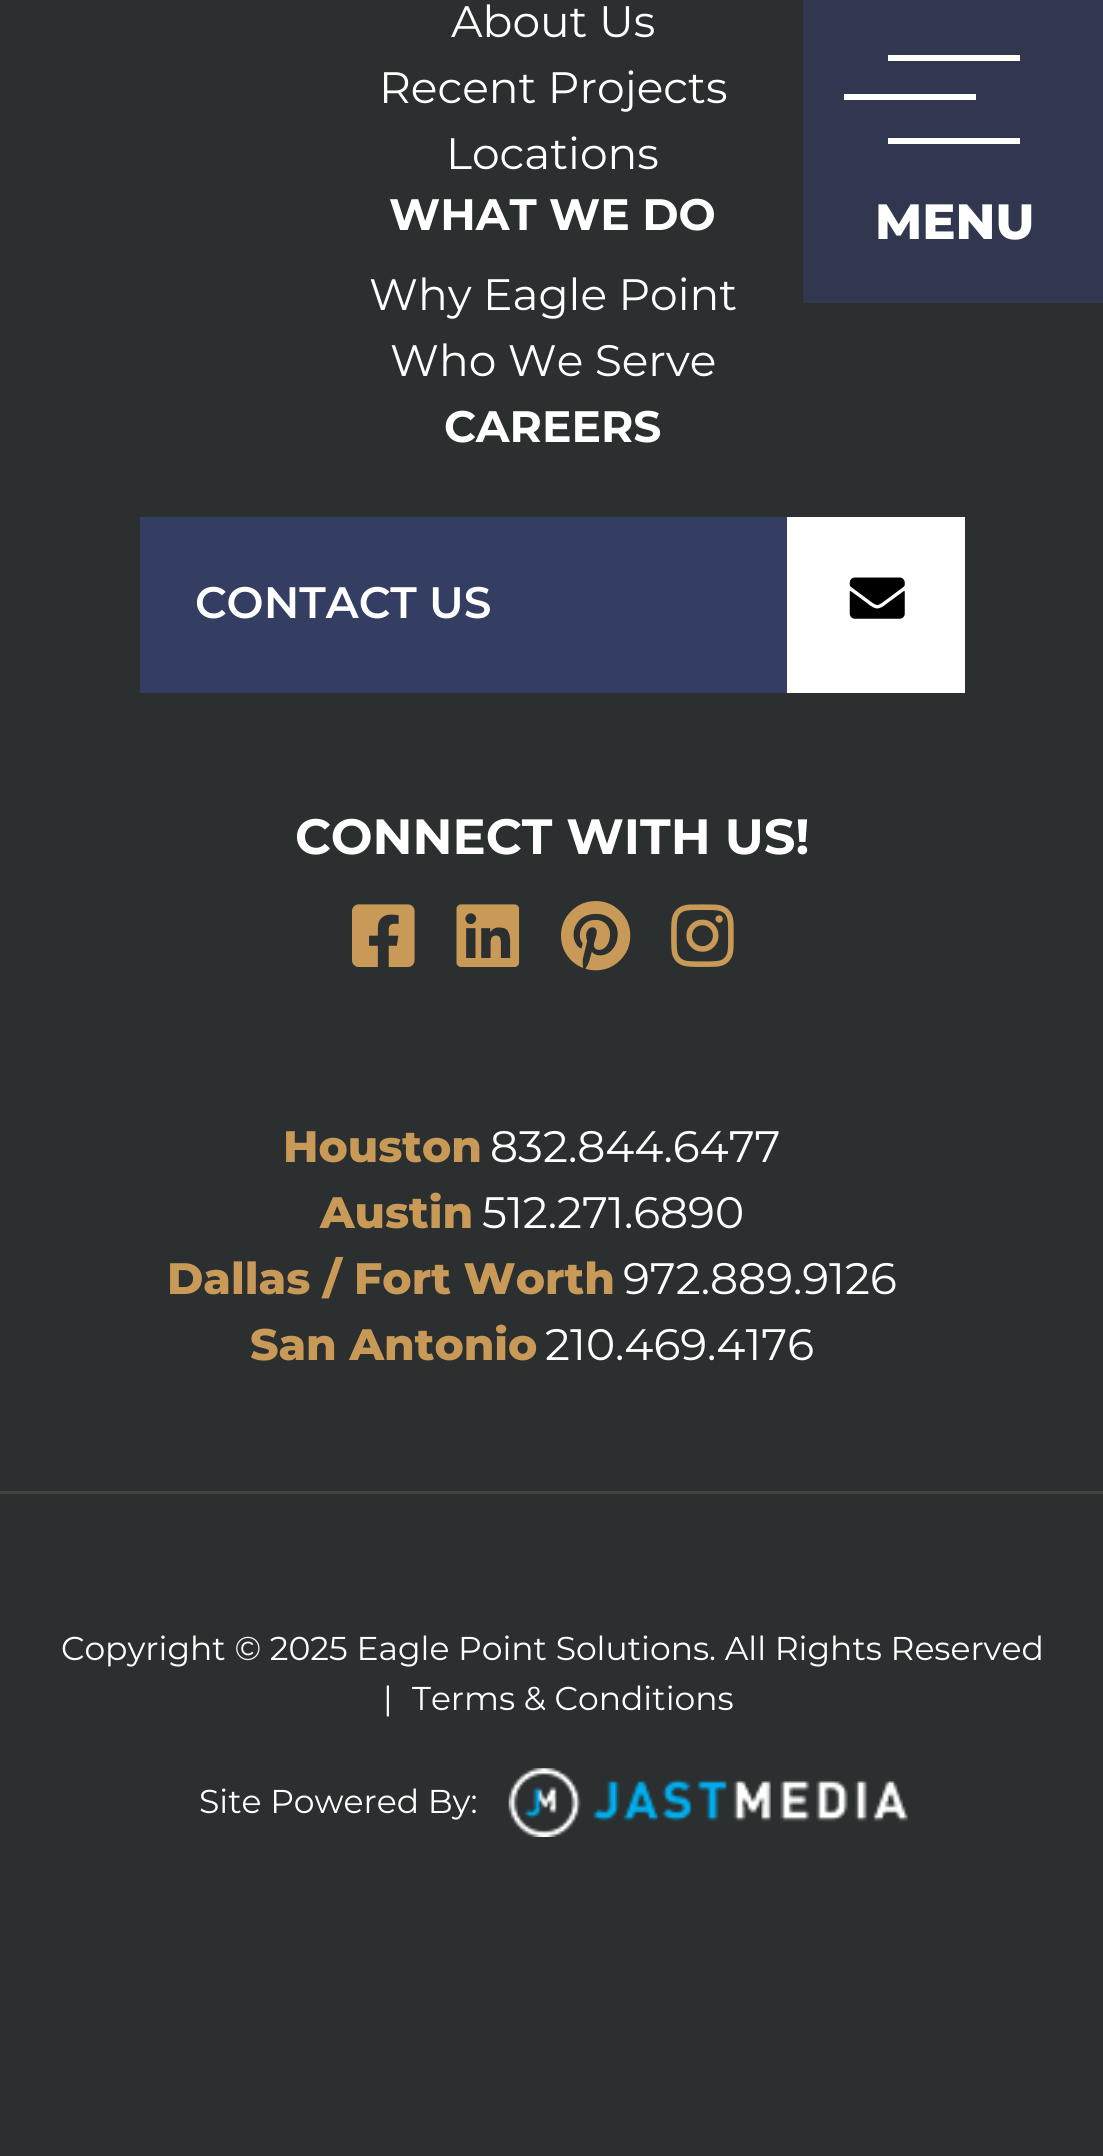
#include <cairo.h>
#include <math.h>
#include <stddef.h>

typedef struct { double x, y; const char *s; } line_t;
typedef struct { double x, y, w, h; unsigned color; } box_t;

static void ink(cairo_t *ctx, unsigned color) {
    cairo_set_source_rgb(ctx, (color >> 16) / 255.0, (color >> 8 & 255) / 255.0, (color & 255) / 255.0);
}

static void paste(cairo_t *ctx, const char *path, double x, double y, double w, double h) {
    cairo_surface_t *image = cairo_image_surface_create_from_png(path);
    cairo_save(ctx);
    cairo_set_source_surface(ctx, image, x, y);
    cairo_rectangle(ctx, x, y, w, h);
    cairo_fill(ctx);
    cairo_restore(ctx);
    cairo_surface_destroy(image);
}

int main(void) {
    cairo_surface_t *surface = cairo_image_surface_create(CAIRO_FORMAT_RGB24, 1103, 2156);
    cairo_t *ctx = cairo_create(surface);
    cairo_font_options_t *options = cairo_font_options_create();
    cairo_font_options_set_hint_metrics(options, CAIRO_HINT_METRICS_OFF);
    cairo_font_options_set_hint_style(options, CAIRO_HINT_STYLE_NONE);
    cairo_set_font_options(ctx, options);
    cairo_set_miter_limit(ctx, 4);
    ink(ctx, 0x2B2F2F);
    cairo_paint(ctx);
    ink(ctx, 0x454341);
    cairo_rectangle(ctx, 0, 1491, 1103, 3);
    cairo_fill(ctx);
    cairo_select_font_face(ctx, "Montserrat", CAIRO_FONT_SLANT_NORMAL, CAIRO_FONT_WEIGHT_NORMAL);
    cairo_set_font_size(ctx, 44);
    ink(ctx, 0xFFFFFF);
    {
        static const line_t items[] = {
            {451, 37, "About Us"},
            {379, 103, "Recent Projects"},
            {446, 169, "Locations"},
        };
        for (size_t i = 0; i < sizeof items / sizeof *items; i++) {
            cairo_move_to(ctx, items[i].x, items[i].y);
            cairo_show_text(ctx, items[i].s);
        }
    }
    cairo_select_font_face(ctx, "Montserrat", CAIRO_FONT_SLANT_NORMAL, CAIRO_FONT_WEIGHT_BOLD);
    cairo_move_to(ctx, 389, 230);
    cairo_show_text(ctx, "WHAT WE DO");
    cairo_select_font_face(ctx, "Montserrat", CAIRO_FONT_SLANT_NORMAL, CAIRO_FONT_WEIGHT_NORMAL);
    cairo_move_to(ctx, 369, 310);
    cairo_show_text(ctx, "Why Eagle Point");
    cairo_move_to(ctx, 390, 376);
    cairo_show_text(ctx, "Who We Serve");
    cairo_select_font_face(ctx, "Montserrat", CAIRO_FONT_SLANT_NORMAL, CAIRO_FONT_WEIGHT_BOLD);
    cairo_move_to(ctx, 444, 442);
    cairo_show_text(ctx, "CAREERS");
    ink(ctx, 0x343D62);
    cairo_rectangle(ctx, 140, 517, 647, 176);
    cairo_fill(ctx);
    cairo_select_font_face(ctx, "Montserrat SemiBold", CAIRO_FONT_SLANT_NORMAL, CAIRO_FONT_WEIGHT_NORMAL);
    ink(ctx, 0xFFFFFF);
    cairo_move_to(ctx, 195, 618);
    cairo_show_text(ctx, "CONTACT US");
    cairo_rectangle(ctx, 787, 517, 178, 176);
    cairo_fill(ctx);
    paste(ctx, "media/1.png", 849, 577, 56, 42);
    cairo_select_font_face(ctx, "Montserrat", CAIRO_FONT_SLANT_NORMAL, CAIRO_FONT_WEIGHT_BOLD);
    cairo_set_font_size(ctx, 49.5);
    cairo_move_to(ctx, 295, 854);
    cairo_show_text(ctx, "CONNECT WITH US!");
    paste(ctx, "media/2.png", 352, 904, 63, 63);
    paste(ctx, "media/3.png", 456, 904, 64, 63);
    paste(ctx, "media/4.png", 561, 901, 70, 70);
    paste(ctx, "media/5.png", 671, 904, 63, 63);
    cairo_select_font_face(ctx, "Montserrat ExtraBold", CAIRO_FONT_SLANT_NORMAL, CAIRO_FONT_WEIGHT_NORMAL);
    cairo_set_font_size(ctx, 44);
    ink(ctx, 0xC99A57);
    cairo_move_to(ctx, 283, 1162);
    cairo_show_text(ctx, "Houston");
    cairo_select_font_face(ctx, "Montserrat", CAIRO_FONT_SLANT_NORMAL, CAIRO_FONT_WEIGHT_NORMAL);
    ink(ctx, 0xFFFFFF);
    cairo_move_to(ctx, 490, 1162);
    cairo_show_text(ctx, "832.844.6477");
    cairo_select_font_face(ctx, "Montserrat ExtraBold", CAIRO_FONT_SLANT_NORMAL, CAIRO_FONT_WEIGHT_NORMAL);
    ink(ctx, 0xC99A57);
    cairo_move_to(ctx, 320, 1228);
    cairo_show_text(ctx, "Austin");
    cairo_select_font_face(ctx, "Montserrat", CAIRO_FONT_SLANT_NORMAL, CAIRO_FONT_WEIGHT_NORMAL);
    ink(ctx, 0xFFFFFF);
    cairo_move_to(ctx, 482, 1228);
    cairo_show_text(ctx, "512.271.6890");
    cairo_select_font_face(ctx, "Montserrat ExtraBold", CAIRO_FONT_SLANT_NORMAL, CAIRO_FONT_WEIGHT_NORMAL);
    ink(ctx, 0xC99A57);
    cairo_move_to(ctx, 167, 1294);
    cairo_show_text(ctx, "Dallas / Fort Worth");
    cairo_select_font_face(ctx, "Montserrat", CAIRO_FONT_SLANT_NORMAL, CAIRO_FONT_WEIGHT_NORMAL);
    ink(ctx, 0xFFFFFF);
    cairo_move_to(ctx, 623, 1294);
    cairo_show_text(ctx, "972.889.9126");
    cairo_select_font_face(ctx, "Montserrat ExtraBold", CAIRO_FONT_SLANT_NORMAL, CAIRO_FONT_WEIGHT_NORMAL);
    ink(ctx, 0xC99A57);
    cairo_move_to(ctx, 250, 1360);
    cairo_show_text(ctx, "San Antonio");
    cairo_select_font_face(ctx, "Montserrat", CAIRO_FONT_SLANT_NORMAL, CAIRO_FONT_WEIGHT_NORMAL);
    ink(ctx, 0xFFFFFF);
    cairo_move_to(ctx, 545, 1360);
    cairo_show_text(ctx, "210.469.4176");
    cairo_set_font_size(ctx, 33);
    {
        static const line_t items[] = {
            {61, 1660, "Copyright © 2025 Eagle Point Solutions. All Rights Reserved"},
            {383, 1710, "|"},
            {412, 1710, "Terms & Conditions"},
            {199, 1813, "Site Powered By:"},
        };
        for (size_t i = 0; i < sizeof items / sizeof *items; i++) {
            cairo_move_to(ctx, items[i].x, items[i].y);
            cairo_show_text(ctx, items[i].s);
        }
    }
    paste(ctx, "media/6.png", 508, 1768, 400, 69);
    {
        static const box_t items[] = {
            {803, 0, 300, 303, 0x30374E},
            {888, 55, 132, 6, 0xFFFFFF},
            {844, 94, 132, 6, 0xFFFFFF},
            {888, 138, 132, 6, 0xFFFFFF},
        };
        for (size_t i = 0; i < sizeof items / sizeof *items; i++) {
            ink(ctx, items[i].color);
            cairo_rectangle(ctx, items[i].x, items[i].y, items[i].w, items[i].h);
            cairo_fill(ctx);
        }
    }
    cairo_select_font_face(ctx, "Montserrat ExtraBold", CAIRO_FONT_SLANT_NORMAL, CAIRO_FONT_WEIGHT_NORMAL);
    cairo_set_font_size(ctx, 49.5);
    cairo_move_to(ctx, 875, 239);
    cairo_show_text(ctx, "MENU");
    cairo_surface_write_to_png(surface, "image.png");
    cairo_font_options_destroy(options);
    cairo_destroy(ctx);
    cairo_surface_destroy(surface);
    return 0;
}
